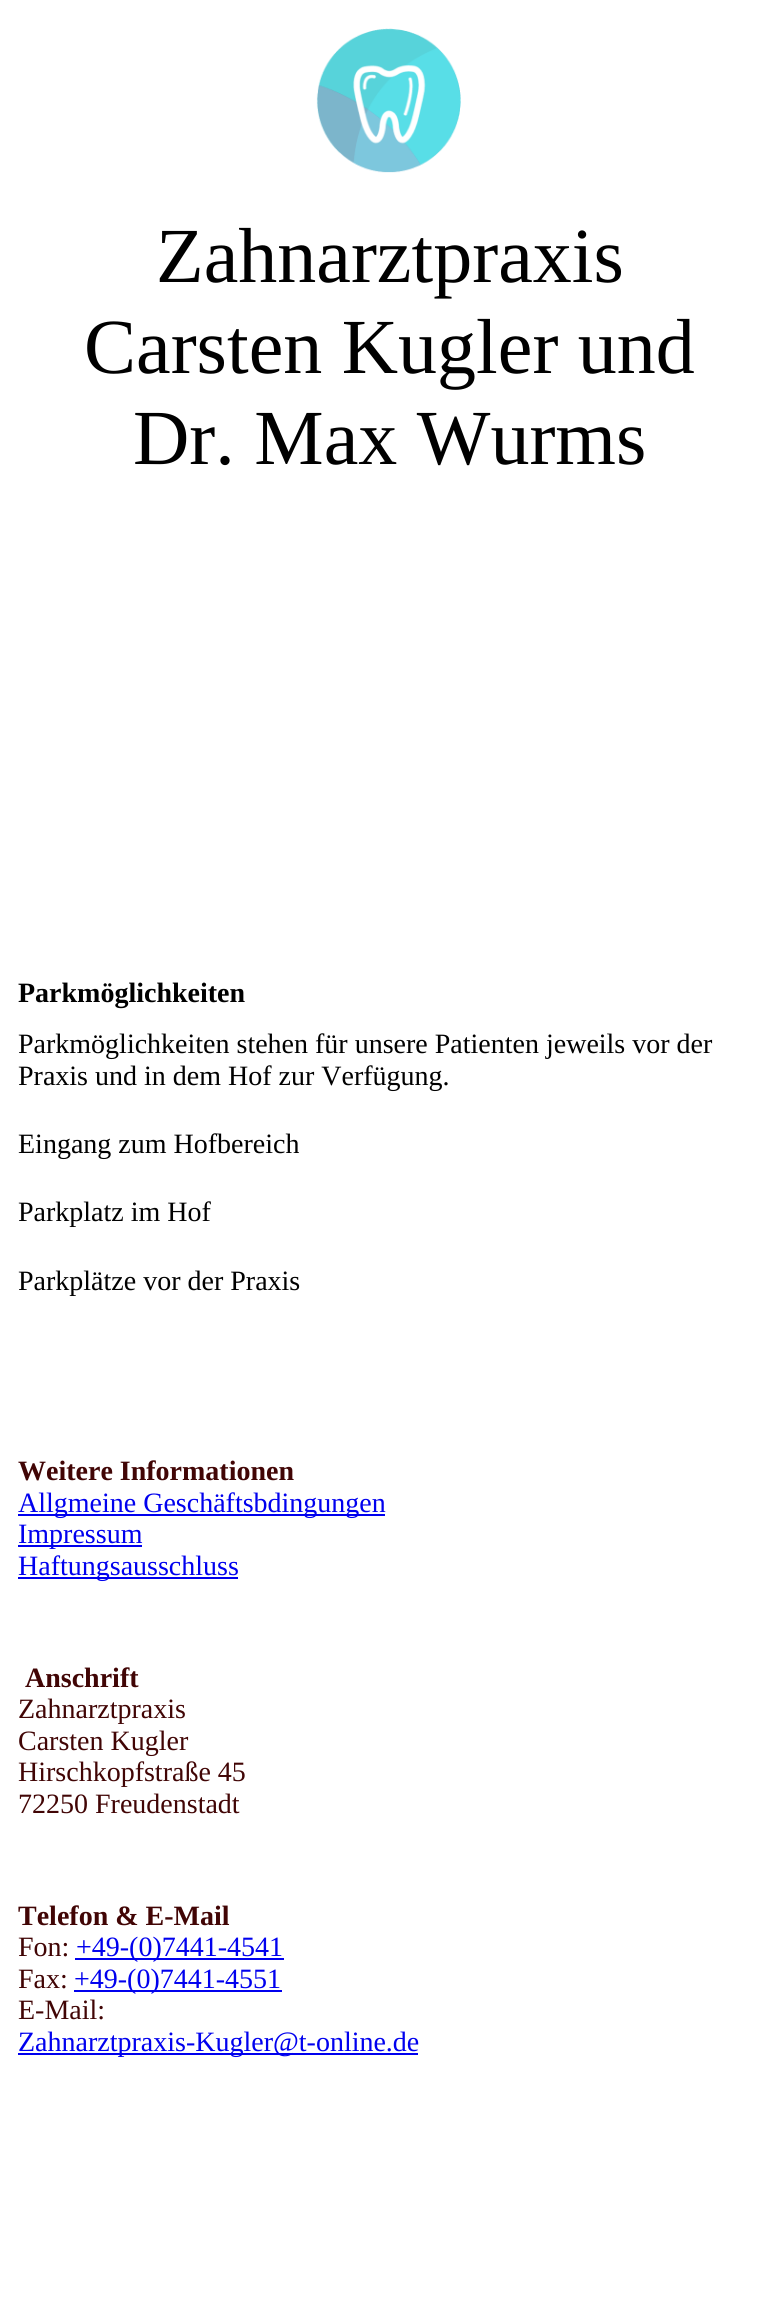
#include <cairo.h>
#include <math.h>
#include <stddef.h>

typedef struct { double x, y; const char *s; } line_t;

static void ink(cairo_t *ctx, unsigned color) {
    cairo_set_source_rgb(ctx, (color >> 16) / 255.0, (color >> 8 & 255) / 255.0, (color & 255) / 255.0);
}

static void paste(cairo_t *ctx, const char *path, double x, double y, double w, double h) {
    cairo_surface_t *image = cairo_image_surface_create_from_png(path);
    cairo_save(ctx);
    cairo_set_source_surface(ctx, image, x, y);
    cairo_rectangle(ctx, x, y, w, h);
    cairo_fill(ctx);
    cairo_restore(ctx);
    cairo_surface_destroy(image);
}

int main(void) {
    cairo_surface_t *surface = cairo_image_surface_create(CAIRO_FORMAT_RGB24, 778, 2324);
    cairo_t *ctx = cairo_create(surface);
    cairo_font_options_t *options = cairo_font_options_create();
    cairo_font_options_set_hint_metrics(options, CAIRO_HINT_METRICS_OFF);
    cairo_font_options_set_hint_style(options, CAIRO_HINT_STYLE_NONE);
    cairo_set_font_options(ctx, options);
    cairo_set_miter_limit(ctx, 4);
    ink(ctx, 0xFFFFFF);
    cairo_paint(ctx);
    paste(ctx, "media/1.png", 316, 28, 145, 145);
    cairo_select_font_face(ctx, "Liberation Serif", CAIRO_FONT_SLANT_NORMAL, CAIRO_FONT_WEIGHT_NORMAL);
    cairo_set_font_size(ctx, 78);
    ink(ctx, 0x000000);
    {
        static const line_t items[] = {
            {156, 282, "Zahnarztpraxis"},
            {84, 373, "Carsten Kugler und"},
            {133, 464, "Dr. Max Wurms"},
        };
        for (size_t i = 0; i < sizeof items / sizeof *items; i++) {
            cairo_move_to(ctx, items[i].x, items[i].y);
            cairo_show_text(ctx, items[i].s);
        }
    }
    cairo_select_font_face(ctx, "Liberation Serif", CAIRO_FONT_SLANT_NORMAL, CAIRO_FONT_WEIGHT_BOLD);
    cairo_set_font_size(ctx, 28);
    cairo_move_to(ctx, 18, 1002);
    cairo_show_text(ctx, "Parkmöglichkeiten");
    cairo_select_font_face(ctx, "Liberation Serif", CAIRO_FONT_SLANT_NORMAL, CAIRO_FONT_WEIGHT_NORMAL);
    {
        static const line_t items[] = {
            {18, 1053, "Parkmöglichkeiten stehen für unsere Patienten jeweils vor der"},
            {18, 1085, "Praxis und in dem Hof zur Verfügung."},
            {18, 1153, "Eingang zum Hofbereich"},
            {18, 1221, "Parkplatz im Hof"},
            {18, 1290, "Parkplätze vor der Praxis"},
        };
        for (size_t i = 0; i < sizeof items / sizeof *items; i++) {
            cairo_move_to(ctx, items[i].x, items[i].y);
            cairo_show_text(ctx, items[i].s);
        }
    }
    cairo_select_font_face(ctx, "Liberation Serif", CAIRO_FONT_SLANT_NORMAL, CAIRO_FONT_WEIGHT_BOLD);
    ink(ctx, 0x410505);
    cairo_move_to(ctx, 18, 1480);
    cairo_show_text(ctx, "Weitere Informationen");
    ink(ctx, 0x0000EE);
    cairo_rectangle(ctx, 18, 1514, 367, 2);
    cairo_fill(ctx);
    cairo_select_font_face(ctx, "Liberation Serif", CAIRO_FONT_SLANT_NORMAL, CAIRO_FONT_WEIGHT_NORMAL);
    cairo_move_to(ctx, 18, 1512);
    cairo_show_text(ctx, "Allgmeine Geschäftsbdingungen");
    cairo_rectangle(ctx, 18, 1545, 124, 2);
    cairo_fill(ctx);
    cairo_move_to(ctx, 18, 1543);
    cairo_show_text(ctx, "Impressum");
    cairo_rectangle(ctx, 18, 1577, 220, 2);
    cairo_fill(ctx);
    cairo_move_to(ctx, 18, 1575);
    cairo_show_text(ctx, "Haftungsausschluss");
    cairo_select_font_face(ctx, "Liberation Serif", CAIRO_FONT_SLANT_NORMAL, CAIRO_FONT_WEIGHT_BOLD);
    ink(ctx, 0x410505);
    cairo_move_to(ctx, 25, 1687);
    cairo_show_text(ctx, "Anschrift");
    cairo_select_font_face(ctx, "Liberation Serif", CAIRO_FONT_SLANT_NORMAL, CAIRO_FONT_WEIGHT_NORMAL);
    {
        static const line_t items[] = {
            {18, 1718, "Zahnarztpraxis"},
            {18, 1750, "Carsten Kugler"},
            {18, 1781, "Hirschkopfstraße 45"},
            {18, 1813, "72250 Freudenstadt"},
        };
        for (size_t i = 0; i < sizeof items / sizeof *items; i++) {
            cairo_move_to(ctx, items[i].x, items[i].y);
            cairo_show_text(ctx, items[i].s);
        }
    }
    cairo_select_font_face(ctx, "Liberation Serif", CAIRO_FONT_SLANT_NORMAL, CAIRO_FONT_WEIGHT_BOLD);
    cairo_move_to(ctx, 18, 1925);
    cairo_show_text(ctx, "Telefon & E-Mail");
    cairo_select_font_face(ctx, "Liberation Serif", CAIRO_FONT_SLANT_NORMAL, CAIRO_FONT_WEIGHT_NORMAL);
    cairo_move_to(ctx, 18, 1956);
    cairo_show_text(ctx, "Fon:");
    ink(ctx, 0x0000EE);
    cairo_rectangle(ctx, 75, 1958, 209, 2);
    cairo_fill(ctx);
    cairo_move_to(ctx, 76, 1956);
    cairo_show_text(ctx, "+49-(0)7441-4541");
    ink(ctx, 0x410505);
    cairo_move_to(ctx, 18, 1988);
    cairo_show_text(ctx, "Fax:");
    ink(ctx, 0x0000EE);
    cairo_rectangle(ctx, 74, 1990, 208, 2);
    cairo_fill(ctx);
    cairo_move_to(ctx, 74, 1988);
    cairo_show_text(ctx, "+49-(0)7441-4551");
    ink(ctx, 0x410505);
    cairo_move_to(ctx, 18, 2019);
    cairo_show_text(ctx, "E-Mail:");
    ink(ctx, 0x0000EE);
    cairo_rectangle(ctx, 18, 2053, 400, 2);
    cairo_fill(ctx);
    cairo_move_to(ctx, 18, 2051);
    cairo_show_text(ctx, "Zahnarztpraxis-Kugler@t-online.de");
    cairo_surface_write_to_png(surface, "image.png");
    cairo_font_options_destroy(options);
    cairo_destroy(ctx);
    cairo_surface_destroy(surface);
    return 0;
}
